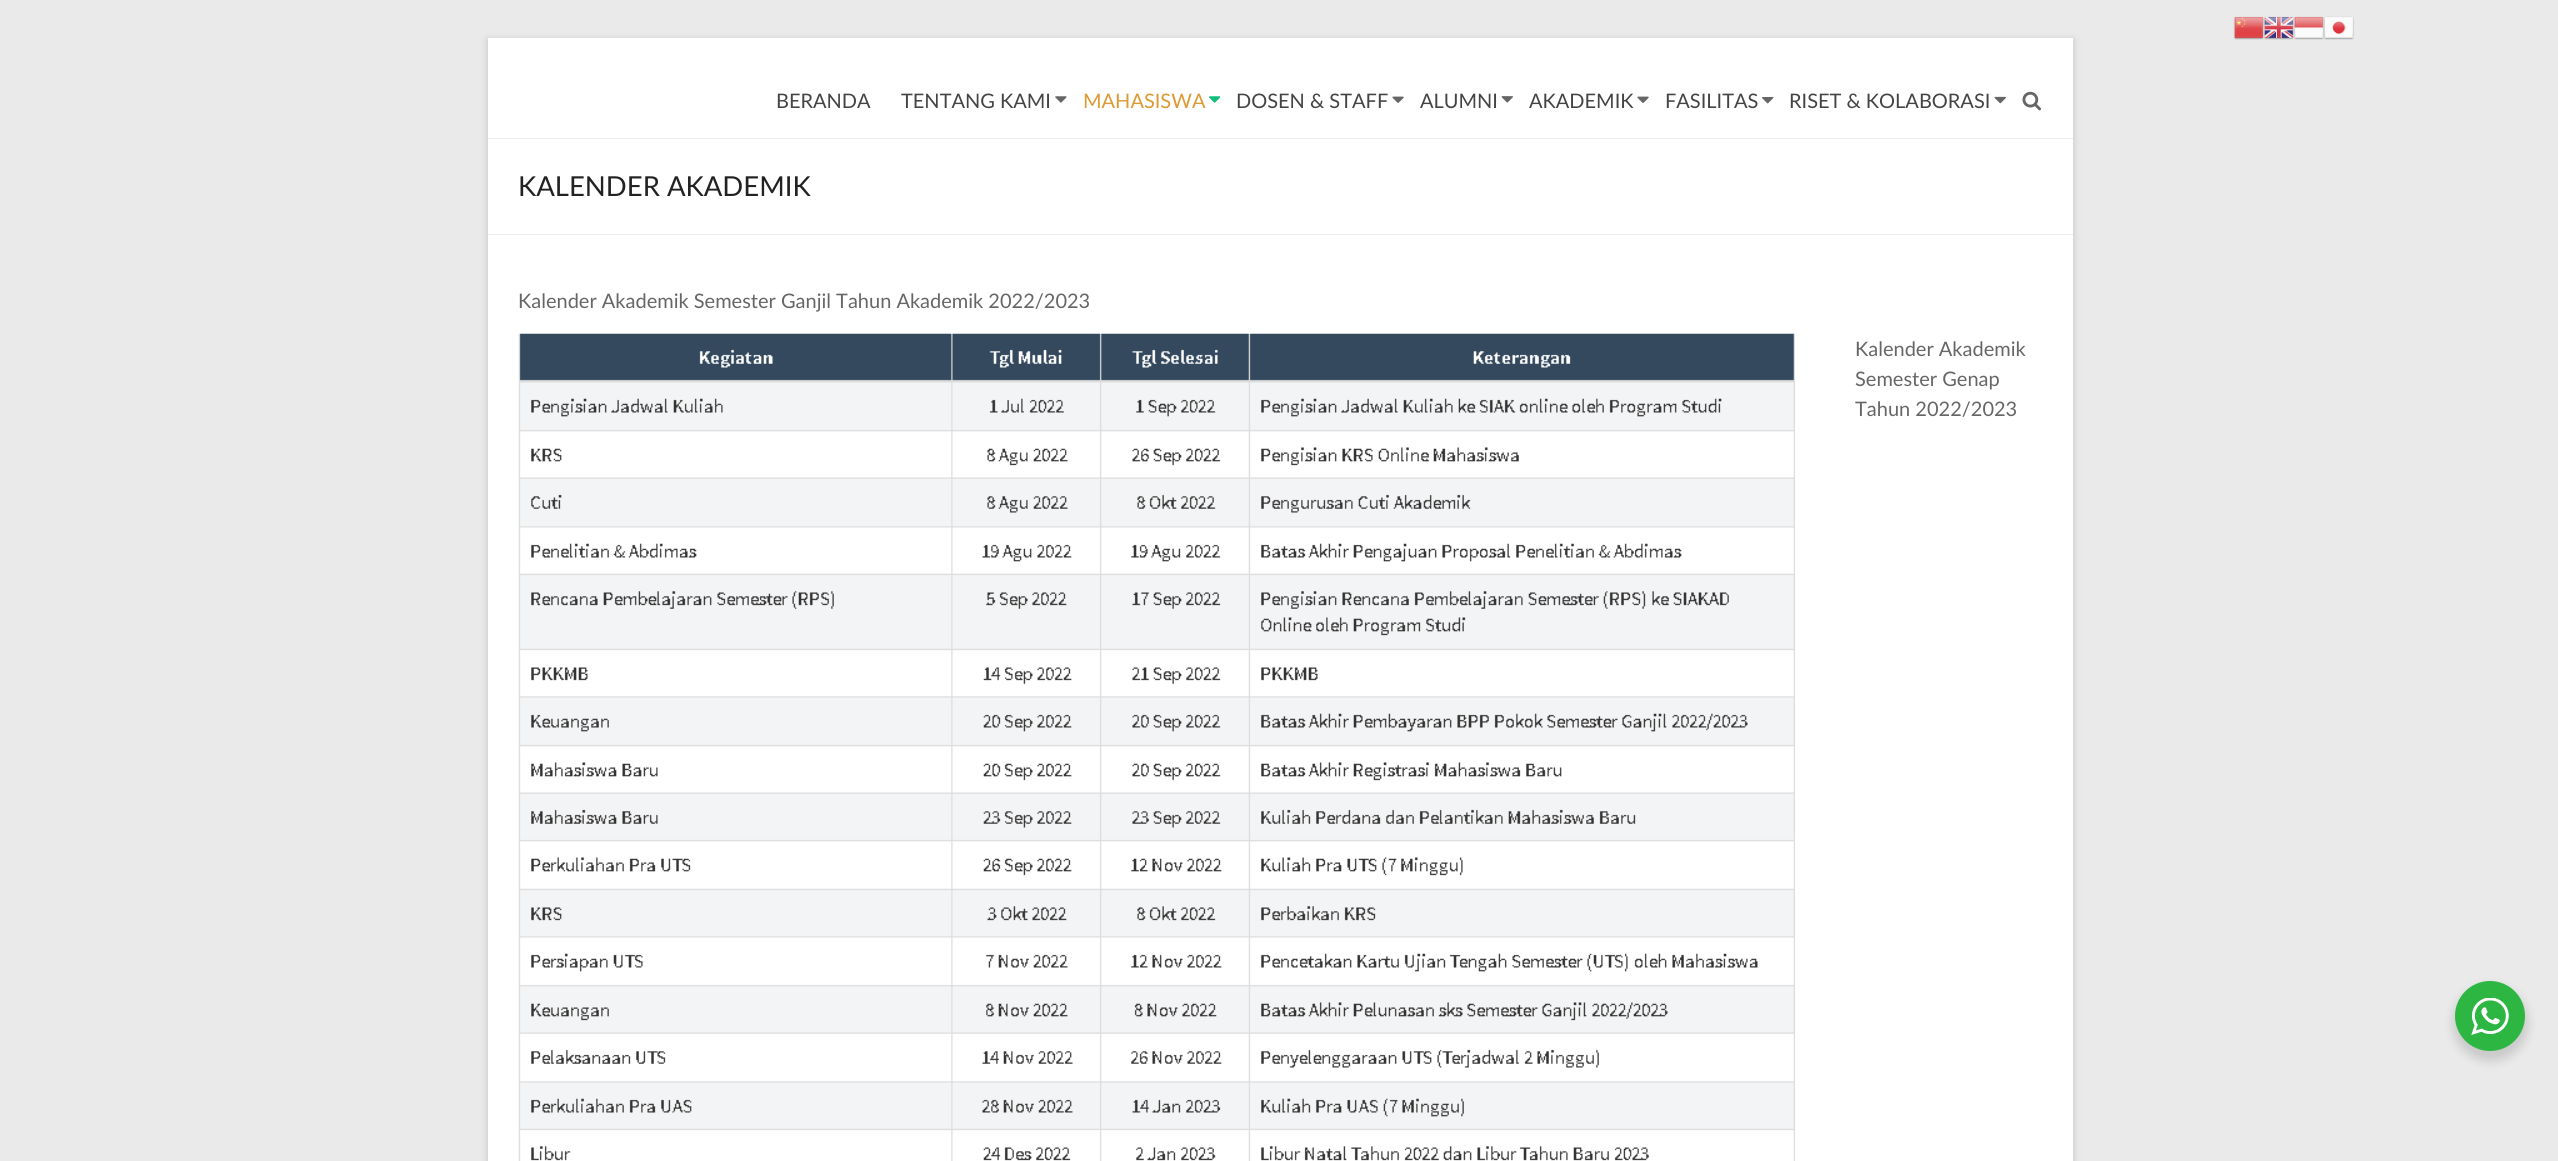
#include <cairo.h>
#include <math.h>
#include <stddef.h>

typedef struct { double x, y; const char *s; } line_t;

static void ink(cairo_t *ctx, unsigned color) {
    cairo_set_source_rgb(ctx, (color >> 16) / 255.0, (color >> 8 & 255) / 255.0, (color & 255) / 255.0);
}

static void round_path(cairo_t *ctx, double x, double y, double w, double h, double r) {
    cairo_new_sub_path(ctx);
    cairo_arc(ctx, x + w - r, y + h - r, r, 0, M_PI / 2);
    cairo_arc(ctx, x + r, y + h - r, r, M_PI / 2, M_PI);
    cairo_arc(ctx, x + r, y + r, r, M_PI, 1.5 * M_PI);
    cairo_arc(ctx, x + w - r, y + r, r, 1.5 * M_PI, 2 * M_PI);
    cairo_close_path(ctx);
}

static void blur_box(cairo_t *ctx, double x, double y, double w, double h, double r, double blur, double alpha) {
    cairo_push_group_with_content(ctx, CAIRO_CONTENT_ALPHA);
    cairo_set_operator(ctx, CAIRO_OPERATOR_SOURCE);
    for (int i = 15; i >= -15 && fmin(w, h) + blur * i / 3 > 0; i -= 2) {
        double e = blur * i / 6;
        cairo_set_source_rgba(ctx, 0, 0, 0, alpha * erfc((i - 1) / 8.5) / 2);
        round_path(ctx, x - e, y - e, w + 2 * e, h + 2 * e, fmax(0, fmin(r + e + blur * .6, fmin(w, h) / 2 + e)));
        cairo_fill(ctx);
    }
    cairo_pattern_t *soft = cairo_pop_group(ctx);
    cairo_mask(ctx, soft);
    cairo_pattern_destroy(soft);
}

static void paste(cairo_t *ctx, const char *path, double x, double y, double w, double h) {
    cairo_surface_t *image = cairo_image_surface_create_from_png(path);
    cairo_save(ctx);
    cairo_set_source_surface(ctx, image, x, y);
    cairo_rectangle(ctx, x, y, w, h);
    cairo_fill(ctx);
    cairo_restore(ctx);
    cairo_surface_destroy(image);
}

int main(void) {
    cairo_surface_t *surface = cairo_image_surface_create(CAIRO_FORMAT_RGB24, 2558, 1161);
    cairo_t *ctx = cairo_create(surface);
    cairo_font_options_t *options = cairo_font_options_create();
    cairo_font_options_set_hint_metrics(options, CAIRO_HINT_METRICS_OFF);
    cairo_font_options_set_hint_style(options, CAIRO_HINT_STYLE_NONE);
    cairo_set_font_options(ctx, options);
    cairo_set_miter_limit(ctx, 4);
    ink(ctx, 0xEAEAEA);
    cairo_paint(ctx);
    paste(ctx, "media/1.png", 2233, 16, 31, 24);
    paste(ctx, "media/2.png", 2263, 16, 31, 24);
    paste(ctx, "media/3.png", 2293, 16, 31, 24);
    paste(ctx, "media/4.png", 2323, 16, 31, 24);
    ink(ctx, 0x646464);
    blur_box(ctx, 488, 40, 1585, 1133, 0, 4, 0.3);
    ink(ctx, 0xFFFFFF);
    cairo_rectangle(ctx, 488, 38, 1585, 1123);
    cairo_fill(ctx);
    ink(ctx, 0xEAEAEA);
    cairo_rectangle(ctx, 488, 138, 1585, 1);
    cairo_fill(ctx);
    cairo_select_font_face(ctx, "Lato", CAIRO_FONT_SLANT_NORMAL, CAIRO_FONT_WEIGHT_NORMAL);
    cairo_set_font_size(ctx, 20);
    ink(ctx, 0x444444);
    cairo_move_to(ctx, 776, 108);
    cairo_show_text(ctx, "BERANDA");
    cairo_move_to(ctx, 901, 108);
    cairo_show_text(ctx, "TENTANG KAMI");
    paste(ctx, "media/5.png", 1055, 96, 12, 7);
    ink(ctx, 0xDD9933);
    cairo_move_to(ctx, 1083, 108);
    cairo_show_text(ctx, "MAHASISWA");
    paste(ctx, "media/6.png", 1209, 96, 12, 7);
    ink(ctx, 0x444444);
    cairo_move_to(ctx, 1236, 108);
    cairo_show_text(ctx, "DOSEN & STAFF");
    paste(ctx, "media/7.png", 1392, 96, 12, 7);
    cairo_move_to(ctx, 1420, 108);
    cairo_show_text(ctx, "ALUMNI");
    paste(ctx, "media/8.png", 1501, 96, 12, 7);
    cairo_move_to(ctx, 1529, 108);
    cairo_show_text(ctx, "AKADEMIK");
    paste(ctx, "media/9.png", 1637, 96, 12, 7);
    cairo_move_to(ctx, 1665, 108);
    cairo_show_text(ctx, "FASILITAS");
    paste(ctx, "media/10.png", 1762, 97, 12, 7);
    cairo_move_to(ctx, 1789, 108);
    cairo_show_text(ctx, "RISET & KOLABORASI");
    paste(ctx, "media/11.png", 1994, 96, 12, 8);
    paste(ctx, "media/12.png", 2022, 91, 19, 20);
    ink(ctx, 0xEAEAEA);
    cairo_rectangle(ctx, 488, 234, 1585, 1);
    cairo_fill(ctx);
    cairo_set_font_size(ctx, 27.5);
    ink(ctx, 0x222222);
    cairo_move_to(ctx, 518, 196);
    cairo_show_text(ctx, "KALENDER AKADEMIK");
    cairo_set_font_size(ctx, 20);
    ink(ctx, 0x666666);
    cairo_move_to(ctx, 518, 308);
    cairo_show_text(ctx, "Kalender Akademik Semester Ganjil Tahun Akademik 2022/2023");
    paste(ctx, "media/13.png", 518, 333, 1277, 828);
    {
        static const line_t items[] = {
            {1855, 356, "Kalender Akademik"},
            {1855, 386, "Semester Genap"},
            {1855, 416, "Tahun 2022/2023"},
        };
        for (size_t i = 0; i < sizeof items / sizeof *items; i++) {
            cairo_move_to(ctx, items[i].x, items[i].y);
            cairo_show_text(ctx, items[i].s);
        }
    }
    ink(ctx, 0x000000);
    blur_box(ctx, 2453, 986, 75, 75, 37.5, 5, 0.14);
    ink(ctx, 0x2DB742);
    cairo_arc(ctx, 2490, 1016, 35, 0, 2 * M_PI);
    cairo_fill(ctx);
    paste(ctx, "media/14.png", 2471, 998, 38, 37);
    cairo_surface_write_to_png(surface, "image.png");
    cairo_font_options_destroy(options);
    cairo_destroy(ctx);
    cairo_surface_destroy(surface);
    return 0;
}
